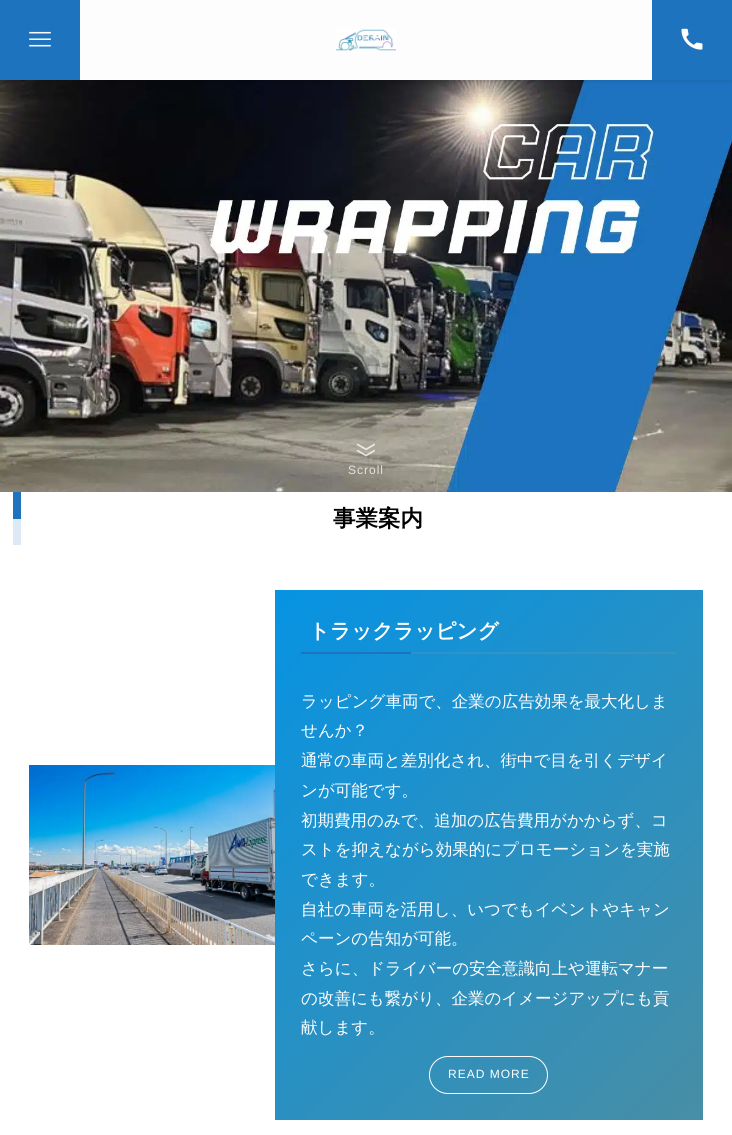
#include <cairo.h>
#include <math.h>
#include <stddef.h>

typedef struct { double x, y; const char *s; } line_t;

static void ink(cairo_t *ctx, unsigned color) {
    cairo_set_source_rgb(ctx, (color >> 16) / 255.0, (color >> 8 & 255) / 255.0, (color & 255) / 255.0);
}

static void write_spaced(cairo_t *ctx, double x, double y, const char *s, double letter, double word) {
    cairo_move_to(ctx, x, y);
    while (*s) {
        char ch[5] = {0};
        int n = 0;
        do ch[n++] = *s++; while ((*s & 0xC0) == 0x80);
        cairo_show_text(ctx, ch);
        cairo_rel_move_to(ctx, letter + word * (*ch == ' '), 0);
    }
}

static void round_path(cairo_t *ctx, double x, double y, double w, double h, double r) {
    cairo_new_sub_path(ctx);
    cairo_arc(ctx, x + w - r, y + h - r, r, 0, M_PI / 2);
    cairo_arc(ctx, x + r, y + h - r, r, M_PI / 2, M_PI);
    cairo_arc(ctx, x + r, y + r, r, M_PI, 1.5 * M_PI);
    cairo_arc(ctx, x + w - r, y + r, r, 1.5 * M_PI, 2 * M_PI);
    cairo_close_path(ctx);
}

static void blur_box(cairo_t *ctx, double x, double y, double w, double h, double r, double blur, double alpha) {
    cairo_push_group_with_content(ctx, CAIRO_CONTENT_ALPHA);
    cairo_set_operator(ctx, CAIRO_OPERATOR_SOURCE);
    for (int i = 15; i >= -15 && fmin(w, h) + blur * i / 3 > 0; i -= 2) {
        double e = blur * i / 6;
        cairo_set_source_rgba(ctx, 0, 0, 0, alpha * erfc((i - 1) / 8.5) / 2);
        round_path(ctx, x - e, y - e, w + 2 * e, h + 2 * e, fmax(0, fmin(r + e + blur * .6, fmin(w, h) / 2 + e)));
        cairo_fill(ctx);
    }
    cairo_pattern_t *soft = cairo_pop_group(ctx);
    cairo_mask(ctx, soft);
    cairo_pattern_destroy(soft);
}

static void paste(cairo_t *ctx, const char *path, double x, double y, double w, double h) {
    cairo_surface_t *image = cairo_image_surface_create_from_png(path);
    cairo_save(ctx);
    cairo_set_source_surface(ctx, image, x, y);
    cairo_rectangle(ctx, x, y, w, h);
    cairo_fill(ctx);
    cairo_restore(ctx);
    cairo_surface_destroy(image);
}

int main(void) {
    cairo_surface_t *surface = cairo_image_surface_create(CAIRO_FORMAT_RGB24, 732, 1135);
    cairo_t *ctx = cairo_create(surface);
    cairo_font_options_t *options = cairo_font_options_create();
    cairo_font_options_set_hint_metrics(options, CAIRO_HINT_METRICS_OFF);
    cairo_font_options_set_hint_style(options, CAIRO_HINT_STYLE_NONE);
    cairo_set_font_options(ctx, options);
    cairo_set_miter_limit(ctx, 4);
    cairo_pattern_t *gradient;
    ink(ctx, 0xFFFFFF);
    cairo_paint(ctx);
    paste(ctx, "media/4.png", 0, 80, 732, 412);
    ink(ctx, 0x000000);
    blur_box(ctx, 0, 1, 732, 80, 0, 2, 0.12);
    ink(ctx, 0xFDFDFD);
    cairo_rectangle(ctx, 80, 0, 572, 80);
    cairo_fill(ctx);
    ink(ctx, 0x1E73BE);
    cairo_rectangle(ctx, 0, 0, 80, 80);
    cairo_fill(ctx);
    paste(ctx, "media/1.png", 29, 31, 22, 16);
    paste(ctx, "media/2.png", 336, 29, 60, 22);
    cairo_rectangle(ctx, 652, 0, 80, 80);
    cairo_fill(ctx);
    paste(ctx, "media/3.png", 681, 28, 22, 22);
    paste(ctx, "media/5.png", 356, 443, 19, 14);
    cairo_select_font_face(ctx, "Liberation Sans", CAIRO_FONT_SLANT_NORMAL, CAIRO_FONT_WEIGHT_NORMAL);
    cairo_set_font_size(ctx, 12);
    ink(ctx, 0xE3E2DF);
    write_spaced(ctx, 348, 474, "Scroll", 1, 0);
    ink(ctx, 0x1E73BE);
    cairo_rectangle(ctx, 13, 492, 8, 27);
    cairo_fill(ctx);
    ink(ctx, 0xDDEAF5);
    cairo_rectangle(ctx, 13, 519, 8, 26);
    cairo_fill(ctx);
    cairo_select_font_face(ctx, "WenQuanYi Zen Hei", CAIRO_FONT_SLANT_NORMAL, CAIRO_FONT_WEIGHT_BOLD);
    cairo_set_font_size(ctx, 22.5);
    ink(ctx, 0x000000);
    cairo_move_to(ctx, 333, 526);
    cairo_show_text(ctx, "事業案内");
    paste(ctx, "media/6.png", 29, 765, 246, 180);
    gradient = cairo_pattern_create_linear(249, 616, 729, 1095);
    cairo_pattern_add_color_stop_rgba(gradient, 0, 0.024, 0.576, 0.89, 1);
    cairo_pattern_add_color_stop_rgba(gradient, 1, 0.282, 0.557, 0.647, 1);
    cairo_set_source(ctx, gradient);
    cairo_pattern_destroy(gradient);
    cairo_rectangle(ctx, 275, 590, 428, 530);
    cairo_fill(ctx);
    gradient = cairo_pattern_create_linear(249, 616, 729, 1095);
    cairo_pattern_add_color_stop_rgba(gradient, 0, 0.137, 0.58, 0.831, 1);
    cairo_pattern_add_color_stop_rgba(gradient, 1, 0.345, 0.565, 0.635, 1);
    cairo_set_source(ctx, gradient);
    cairo_pattern_destroy(gradient);
    cairo_rectangle(ctx, 411, 652, 265, 2);
    cairo_fill(ctx);
    cairo_set_font_size(ctx, 20.6);
    ink(ctx, 0xFFFFFF);
    cairo_move_to(ctx, 309, 638);
    cairo_show_text(ctx, "トラックラッピング");
    ink(ctx, 0x1E73BE);
    cairo_rectangle(ctx, 301, 652, 110, 2);
    cairo_fill(ctx);
    cairo_select_font_face(ctx, "WenQuanYi Zen Hei Medium", CAIRO_FONT_SLANT_NORMAL, CAIRO_FONT_WEIGHT_NORMAL);
    cairo_set_font_size(ctx, 16.5);
    ink(ctx, 0xFFFFFF);
    {
        static const line_t items[] = {
            {301, 707, "ラッピング車両で、企業の広告効果を最大化しま"},
            {301, 736, "せんか？"},
            {301, 766, "通常の車両と差別化され、街中で目を引くデザイ"},
            {301, 796, "ンが可能です。"},
            {301, 826, "初期費用のみで、追加の広告費用がかからず、コ"},
            {301, 855, "ストを抑えながら効果的にプロモーションを実施"},
            {301, 885, "できます。"},
            {301, 915, "自社の車両を活用し、いつでもイベントやキャン"},
            {301, 944, "ペーンの告知が可能。"},
            {301, 974, "さらに、ドライバーの安全意識向上や運転マナー"},
            {301, 1004, "の改善にも繋がり、企業のイメージアップにも貢"},
            {301, 1033, "献します。"},
        };
        for (size_t i = 0; i < sizeof items / sizeof *items; i++) {
            cairo_move_to(ctx, items[i].x, items[i].y);
            cairo_show_text(ctx, items[i].s);
        }
    }
    round_path(ctx, 429.5, 1056.5, 118, 37, 18.5);
    cairo_set_line_width(ctx, 1);
    cairo_stroke(ctx);
    cairo_select_font_face(ctx, "Liberation Sans", CAIRO_FONT_SLANT_NORMAL, CAIRO_FONT_WEIGHT_NORMAL);
    cairo_set_font_size(ctx, 12);
    write_spaced(ctx, 448, 1078, "READ MORE", 1, 0);
    cairo_surface_write_to_png(surface, "image.png");
    cairo_font_options_destroy(options);
    cairo_destroy(ctx);
    cairo_surface_destroy(surface);
    return 0;
}
